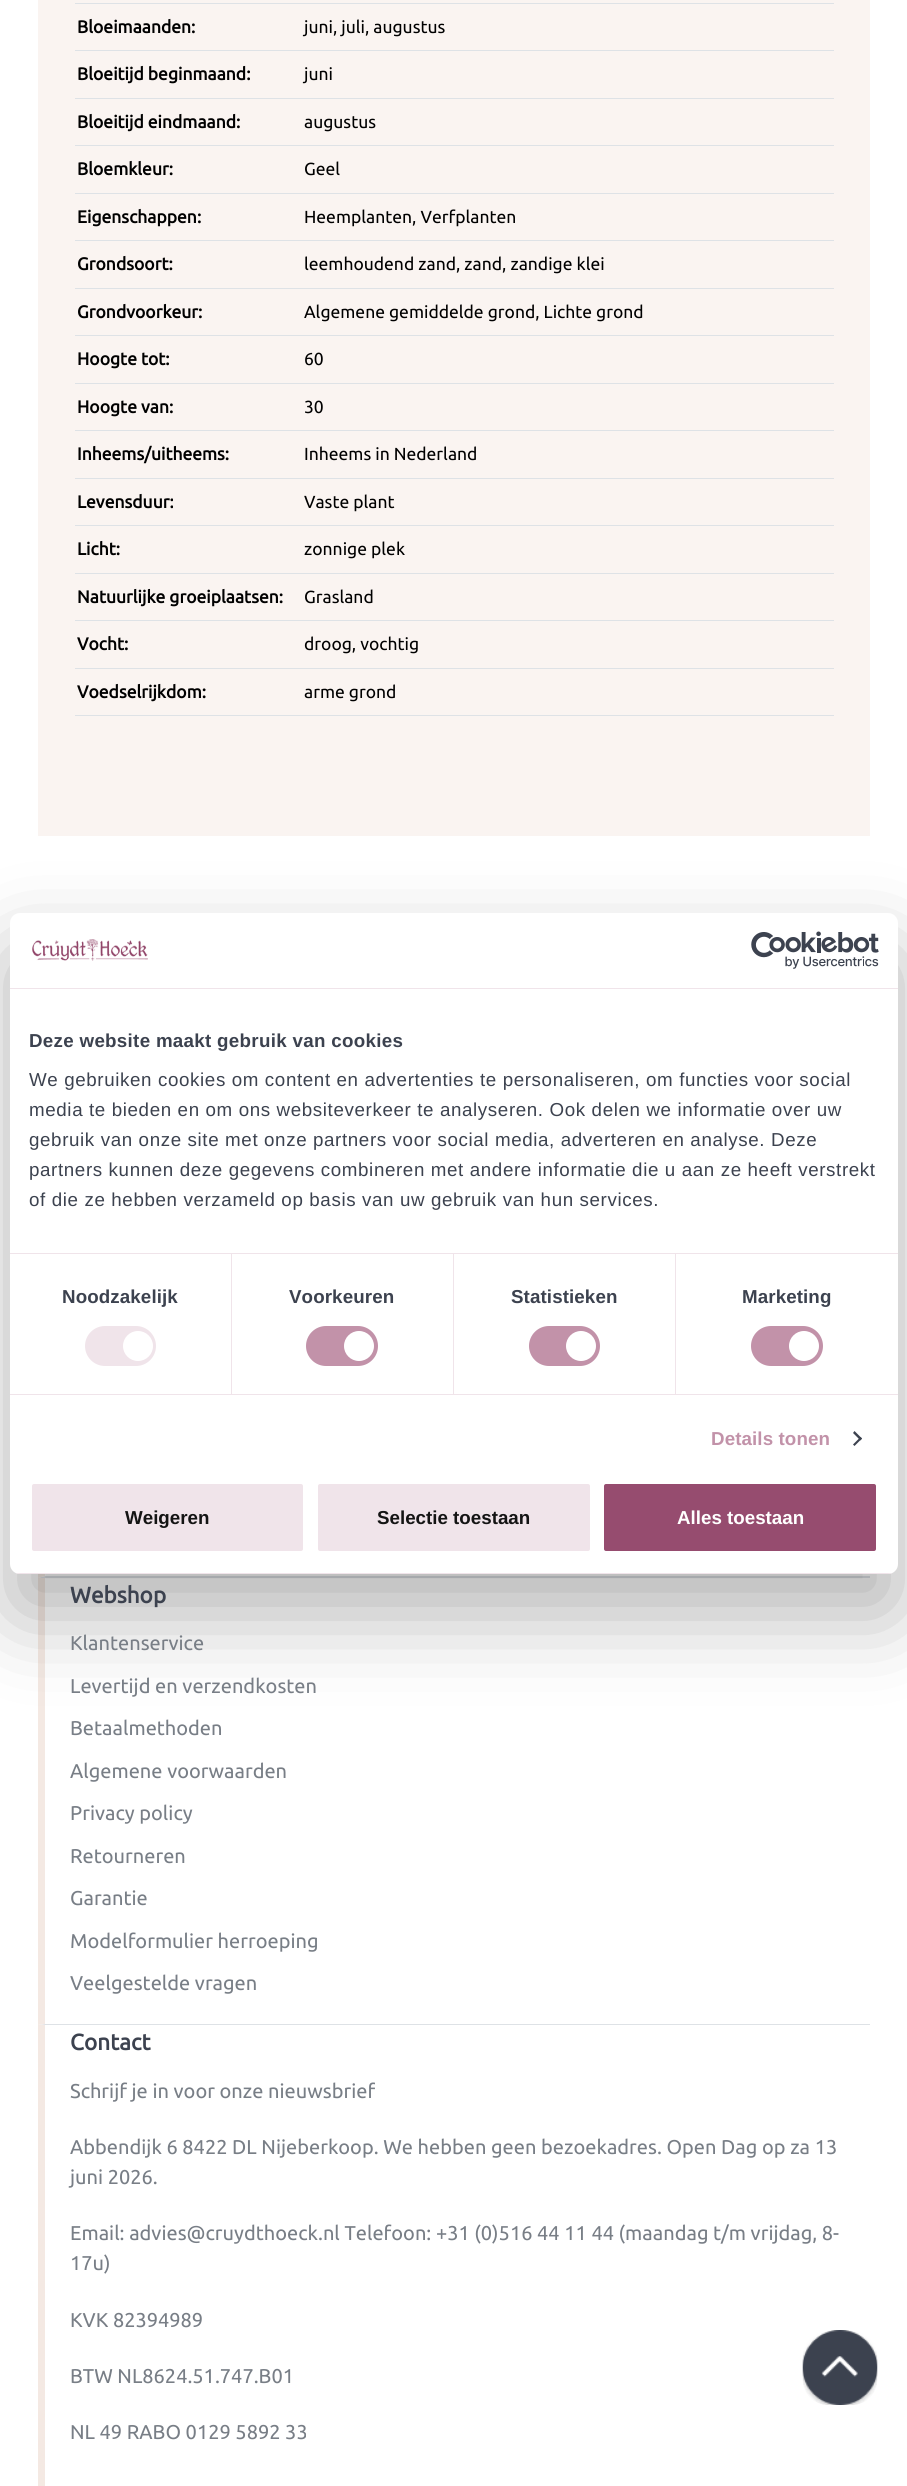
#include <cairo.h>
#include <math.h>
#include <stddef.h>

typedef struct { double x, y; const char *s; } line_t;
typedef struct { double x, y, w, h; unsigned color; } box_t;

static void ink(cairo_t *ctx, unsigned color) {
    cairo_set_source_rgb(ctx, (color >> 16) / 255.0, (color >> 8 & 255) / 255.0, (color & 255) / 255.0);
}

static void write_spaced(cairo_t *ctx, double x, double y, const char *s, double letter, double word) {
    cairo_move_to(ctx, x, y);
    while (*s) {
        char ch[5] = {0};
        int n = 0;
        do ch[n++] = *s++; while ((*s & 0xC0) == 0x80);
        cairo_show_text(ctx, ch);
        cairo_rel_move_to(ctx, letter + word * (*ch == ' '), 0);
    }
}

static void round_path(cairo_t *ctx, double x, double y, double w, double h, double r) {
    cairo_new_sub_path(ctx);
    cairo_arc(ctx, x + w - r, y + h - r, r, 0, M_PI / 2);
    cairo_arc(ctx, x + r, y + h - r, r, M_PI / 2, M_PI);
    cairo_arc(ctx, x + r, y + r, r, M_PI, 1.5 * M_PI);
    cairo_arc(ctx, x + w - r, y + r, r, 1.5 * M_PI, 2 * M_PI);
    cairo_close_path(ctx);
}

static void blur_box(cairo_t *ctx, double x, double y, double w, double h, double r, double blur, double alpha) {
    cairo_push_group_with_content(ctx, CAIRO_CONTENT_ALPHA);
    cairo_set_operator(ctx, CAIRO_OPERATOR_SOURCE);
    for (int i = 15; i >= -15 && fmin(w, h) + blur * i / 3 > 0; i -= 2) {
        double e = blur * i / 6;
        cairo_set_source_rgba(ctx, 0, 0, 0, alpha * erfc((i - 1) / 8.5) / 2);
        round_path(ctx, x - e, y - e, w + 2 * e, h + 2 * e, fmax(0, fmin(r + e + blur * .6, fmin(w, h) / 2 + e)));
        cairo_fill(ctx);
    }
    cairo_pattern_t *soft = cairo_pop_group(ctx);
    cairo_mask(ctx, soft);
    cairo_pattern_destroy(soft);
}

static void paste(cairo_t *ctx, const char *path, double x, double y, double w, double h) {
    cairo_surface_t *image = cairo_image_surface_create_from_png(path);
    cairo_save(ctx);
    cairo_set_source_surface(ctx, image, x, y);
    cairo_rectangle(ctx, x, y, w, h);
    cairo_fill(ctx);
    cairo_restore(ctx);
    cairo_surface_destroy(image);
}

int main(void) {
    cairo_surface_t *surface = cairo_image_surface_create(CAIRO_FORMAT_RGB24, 907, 2486);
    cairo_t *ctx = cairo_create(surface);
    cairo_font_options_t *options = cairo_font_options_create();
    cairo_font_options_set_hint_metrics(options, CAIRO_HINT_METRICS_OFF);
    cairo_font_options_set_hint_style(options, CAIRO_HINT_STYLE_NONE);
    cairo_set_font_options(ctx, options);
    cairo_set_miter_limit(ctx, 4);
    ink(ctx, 0xFFFFFF);
    cairo_paint(ctx);
    {
        static const box_t items[] = {
            {38, 0, 832, 836, 0xFAF4F1},
            {75, 3, 759, 1, 0xDEE2E6},
            {75, 50, 759, 1, 0xDEE2E6},
        };
        for (size_t i = 0; i < sizeof items / sizeof *items; i++) {
            ink(ctx, items[i].color);
            cairo_rectangle(ctx, items[i].x, items[i].y, items[i].w, items[i].h);
            cairo_fill(ctx);
        }
    }
    cairo_select_font_face(ctx, "Ubuntu", CAIRO_FONT_SLANT_NORMAL, CAIRO_FONT_WEIGHT_BOLD);
    cairo_set_font_size(ctx, 17.5);
    ink(ctx, 0x000000);
    cairo_move_to(ctx, 77, 33);
    cairo_show_text(ctx, "Bloeimaanden:");
    cairo_select_font_face(ctx, "Ubuntu", CAIRO_FONT_SLANT_NORMAL, CAIRO_FONT_WEIGHT_NORMAL);
    cairo_move_to(ctx, 304, 33);
    cairo_show_text(ctx, "juni, juli, augustus");
    ink(ctx, 0xDEE2E6);
    cairo_rectangle(ctx, 75, 98, 759, 1);
    cairo_fill(ctx);
    cairo_select_font_face(ctx, "Ubuntu", CAIRO_FONT_SLANT_NORMAL, CAIRO_FONT_WEIGHT_BOLD);
    ink(ctx, 0x000000);
    cairo_move_to(ctx, 77, 80);
    cairo_show_text(ctx, "Bloeitijd beginmaand:");
    cairo_select_font_face(ctx, "Ubuntu", CAIRO_FONT_SLANT_NORMAL, CAIRO_FONT_WEIGHT_NORMAL);
    cairo_move_to(ctx, 304, 80);
    cairo_show_text(ctx, "juni");
    ink(ctx, 0xDEE2E6);
    cairo_rectangle(ctx, 75, 145, 759, 1);
    cairo_fill(ctx);
    cairo_select_font_face(ctx, "Ubuntu", CAIRO_FONT_SLANT_NORMAL, CAIRO_FONT_WEIGHT_BOLD);
    ink(ctx, 0x000000);
    cairo_move_to(ctx, 77, 128);
    cairo_show_text(ctx, "Bloeitijd eindmaand:");
    cairo_select_font_face(ctx, "Ubuntu", CAIRO_FONT_SLANT_NORMAL, CAIRO_FONT_WEIGHT_NORMAL);
    cairo_move_to(ctx, 304, 128);
    cairo_show_text(ctx, "augustus");
    ink(ctx, 0xDEE2E6);
    cairo_rectangle(ctx, 75, 193, 759, 1);
    cairo_fill(ctx);
    cairo_select_font_face(ctx, "Ubuntu", CAIRO_FONT_SLANT_NORMAL, CAIRO_FONT_WEIGHT_BOLD);
    ink(ctx, 0x000000);
    cairo_move_to(ctx, 77, 175);
    cairo_show_text(ctx, "Bloemkleur:");
    cairo_select_font_face(ctx, "Ubuntu", CAIRO_FONT_SLANT_NORMAL, CAIRO_FONT_WEIGHT_NORMAL);
    cairo_move_to(ctx, 304, 175);
    cairo_show_text(ctx, "Geel");
    ink(ctx, 0xDEE2E6);
    cairo_rectangle(ctx, 75, 240, 759, 1);
    cairo_fill(ctx);
    cairo_select_font_face(ctx, "Ubuntu", CAIRO_FONT_SLANT_NORMAL, CAIRO_FONT_WEIGHT_BOLD);
    ink(ctx, 0x000000);
    cairo_move_to(ctx, 77, 223);
    cairo_show_text(ctx, "Eigenschappen:");
    cairo_select_font_face(ctx, "Ubuntu", CAIRO_FONT_SLANT_NORMAL, CAIRO_FONT_WEIGHT_NORMAL);
    cairo_move_to(ctx, 304, 223);
    cairo_show_text(ctx, "Heemplanten, Verfplanten");
    ink(ctx, 0xDEE2E6);
    cairo_rectangle(ctx, 75, 288, 759, 1);
    cairo_fill(ctx);
    cairo_select_font_face(ctx, "Ubuntu", CAIRO_FONT_SLANT_NORMAL, CAIRO_FONT_WEIGHT_BOLD);
    ink(ctx, 0x000000);
    cairo_move_to(ctx, 77, 270);
    cairo_show_text(ctx, "Grondsoort:");
    cairo_select_font_face(ctx, "Ubuntu", CAIRO_FONT_SLANT_NORMAL, CAIRO_FONT_WEIGHT_NORMAL);
    cairo_move_to(ctx, 304, 270);
    cairo_show_text(ctx, "leemhoudend zand, zand, zandige klei");
    ink(ctx, 0xDEE2E6);
    cairo_rectangle(ctx, 75, 335, 759, 1);
    cairo_fill(ctx);
    cairo_select_font_face(ctx, "Ubuntu", CAIRO_FONT_SLANT_NORMAL, CAIRO_FONT_WEIGHT_BOLD);
    ink(ctx, 0x000000);
    cairo_move_to(ctx, 77, 318);
    cairo_show_text(ctx, "Grondvoorkeur:");
    cairo_select_font_face(ctx, "Ubuntu", CAIRO_FONT_SLANT_NORMAL, CAIRO_FONT_WEIGHT_NORMAL);
    cairo_move_to(ctx, 304, 318);
    cairo_show_text(ctx, "Algemene gemiddelde grond, Lichte grond");
    ink(ctx, 0xDEE2E6);
    cairo_rectangle(ctx, 75, 383, 759, 1);
    cairo_fill(ctx);
    cairo_select_font_face(ctx, "Ubuntu", CAIRO_FONT_SLANT_NORMAL, CAIRO_FONT_WEIGHT_BOLD);
    ink(ctx, 0x000000);
    cairo_move_to(ctx, 77, 365);
    cairo_show_text(ctx, "Hoogte tot:");
    cairo_select_font_face(ctx, "Ubuntu", CAIRO_FONT_SLANT_NORMAL, CAIRO_FONT_WEIGHT_NORMAL);
    cairo_move_to(ctx, 304, 365);
    cairo_show_text(ctx, "60");
    ink(ctx, 0xDEE2E6);
    cairo_rectangle(ctx, 75, 430, 759, 1);
    cairo_fill(ctx);
    cairo_select_font_face(ctx, "Ubuntu", CAIRO_FONT_SLANT_NORMAL, CAIRO_FONT_WEIGHT_BOLD);
    ink(ctx, 0x000000);
    cairo_move_to(ctx, 77, 413);
    cairo_show_text(ctx, "Hoogte van:");
    cairo_select_font_face(ctx, "Ubuntu", CAIRO_FONT_SLANT_NORMAL, CAIRO_FONT_WEIGHT_NORMAL);
    cairo_move_to(ctx, 304, 413);
    cairo_show_text(ctx, "30");
    ink(ctx, 0xDEE2E6);
    cairo_rectangle(ctx, 75, 478, 759, 1);
    cairo_fill(ctx);
    cairo_select_font_face(ctx, "Ubuntu", CAIRO_FONT_SLANT_NORMAL, CAIRO_FONT_WEIGHT_BOLD);
    ink(ctx, 0x000000);
    cairo_move_to(ctx, 77, 460);
    cairo_show_text(ctx, "Inheems/uitheems:");
    cairo_select_font_face(ctx, "Ubuntu", CAIRO_FONT_SLANT_NORMAL, CAIRO_FONT_WEIGHT_NORMAL);
    cairo_move_to(ctx, 304, 460);
    cairo_show_text(ctx, "Inheems in Nederland");
    ink(ctx, 0xDEE2E6);
    cairo_rectangle(ctx, 75, 525, 759, 1);
    cairo_fill(ctx);
    cairo_select_font_face(ctx, "Ubuntu", CAIRO_FONT_SLANT_NORMAL, CAIRO_FONT_WEIGHT_BOLD);
    ink(ctx, 0x000000);
    cairo_move_to(ctx, 77, 508);
    cairo_show_text(ctx, "Levensduur:");
    cairo_select_font_face(ctx, "Ubuntu", CAIRO_FONT_SLANT_NORMAL, CAIRO_FONT_WEIGHT_NORMAL);
    cairo_move_to(ctx, 304, 508);
    cairo_show_text(ctx, "Vaste plant");
    ink(ctx, 0xDEE2E6);
    cairo_rectangle(ctx, 75, 573, 759, 1);
    cairo_fill(ctx);
    cairo_select_font_face(ctx, "Ubuntu", CAIRO_FONT_SLANT_NORMAL, CAIRO_FONT_WEIGHT_BOLD);
    ink(ctx, 0x000000);
    cairo_move_to(ctx, 77, 555);
    cairo_show_text(ctx, "Licht:");
    cairo_select_font_face(ctx, "Ubuntu", CAIRO_FONT_SLANT_NORMAL, CAIRO_FONT_WEIGHT_NORMAL);
    cairo_move_to(ctx, 304, 555);
    cairo_show_text(ctx, "zonnige plek");
    ink(ctx, 0xDEE2E6);
    cairo_rectangle(ctx, 75, 620, 759, 1);
    cairo_fill(ctx);
    cairo_select_font_face(ctx, "Ubuntu", CAIRO_FONT_SLANT_NORMAL, CAIRO_FONT_WEIGHT_BOLD);
    ink(ctx, 0x000000);
    cairo_move_to(ctx, 77, 603);
    cairo_show_text(ctx, "Natuurlijke groeiplaatsen:");
    cairo_select_font_face(ctx, "Ubuntu", CAIRO_FONT_SLANT_NORMAL, CAIRO_FONT_WEIGHT_NORMAL);
    cairo_move_to(ctx, 304, 603);
    cairo_show_text(ctx, "Grasland");
    ink(ctx, 0xDEE2E6);
    cairo_rectangle(ctx, 75, 668, 759, 1);
    cairo_fill(ctx);
    cairo_select_font_face(ctx, "Ubuntu", CAIRO_FONT_SLANT_NORMAL, CAIRO_FONT_WEIGHT_BOLD);
    ink(ctx, 0x000000);
    cairo_move_to(ctx, 77, 650);
    cairo_show_text(ctx, "Vocht:");
    cairo_select_font_face(ctx, "Ubuntu", CAIRO_FONT_SLANT_NORMAL, CAIRO_FONT_WEIGHT_NORMAL);
    cairo_move_to(ctx, 304, 650);
    cairo_show_text(ctx, "droog, vochtig");
    ink(ctx, 0xDEE2E6);
    cairo_rectangle(ctx, 75, 715, 759, 1);
    cairo_fill(ctx);
    cairo_select_font_face(ctx, "Ubuntu", CAIRO_FONT_SLANT_NORMAL, CAIRO_FONT_WEIGHT_BOLD);
    ink(ctx, 0x000000);
    cairo_move_to(ctx, 77, 698);
    cairo_show_text(ctx, "Voedselrijkdom:");
    cairo_select_font_face(ctx, "Ubuntu", CAIRO_FONT_SLANT_NORMAL, CAIRO_FONT_WEIGHT_NORMAL);
    cairo_move_to(ctx, 304, 698);
    cairo_show_text(ctx, "arme grond");
    ink(ctx, 0xDEE2E6);
    cairo_new_path(ctx);
    cairo_move_to(ctx, 870, 1578);
    cairo_line_to(ctx, 38, 1578);
    cairo_line_to(ctx, 45, 1576);
    cairo_line_to(ctx, 870, 1576);
    cairo_close_path(ctx);
    cairo_fill(ctx);
    ink(ctx, 0xF4E9E3);
    cairo_new_path(ctx);
    cairo_move_to(ctx, 38, 1578);
    cairo_line_to(ctx, 38, 1172);
    cairo_line_to(ctx, 45, 1172);
    cairo_line_to(ctx, 45, 1576);
    cairo_close_path(ctx);
    cairo_fill(ctx);
    ink(ctx, 0xDEE2E6);
    cairo_new_path(ctx);
    cairo_move_to(ctx, 870, 2025);
    cairo_line_to(ctx, 38, 2025);
    cairo_line_to(ctx, 45, 2024);
    cairo_line_to(ctx, 870, 2024);
    cairo_close_path(ctx);
    cairo_fill(ctx);
    ink(ctx, 0xF4E9E3);
    cairo_new_path(ctx);
    cairo_move_to(ctx, 38, 2025);
    cairo_line_to(ctx, 38, 1578);
    cairo_line_to(ctx, 45, 1578);
    cairo_line_to(ctx, 45, 2024);
    cairo_close_path(ctx);
    cairo_fill(ctx);
    ink(ctx, 0x000000);
    blur_box(ctx, 10, 953, 888, 661, 10, 42.5, 0.3);
    ink(ctx, 0xFFFFFF);
    round_path(ctx, 10, 913, 888, 661, 10);
    cairo_fill(ctx);
    ink(ctx, 0xF0E4EA);
    cairo_rectangle(ctx, 10, 988, 888, 1);
    cairo_fill(ctx);
    paste(ctx, "media/1.png", 32, 939, 116, 22);
    paste(ctx, "media/2.png", 751, 931, 128, 38);
    cairo_rectangle(ctx, 10, 1253, 888, 1);
    cairo_fill(ctx);
    cairo_select_font_face(ctx, "Liberation Sans", CAIRO_FONT_SLANT_NORMAL, CAIRO_FONT_WEIGHT_BOLD);
    cairo_set_font_size(ctx, 18.75);
    ink(ctx, 0x3C424F);
    write_spaced(ctx, 29, 1047, "Deze website maakt gebruik van cookies", 0.3, 0);
    cairo_select_font_face(ctx, "Liberation Sans", CAIRO_FONT_SLANT_NORMAL, CAIRO_FONT_WEIGHT_NORMAL);
    {
        static const line_t items[] = {
            {29, 1086, "We gebruiken cookies om content en advertenties te personaliseren, om functies voor social"},
            {29, 1116, "media te bieden en om ons websiteverkeer te analyseren. Ook delen we informatie over uw"},
            {29, 1146, "gebruik van onze site met onze partners voor social media, adverteren en analyse. Deze"},
            {29, 1176, "partners kunnen deze gegevens combineren met andere informatie die u aan ze heeft verstrekt"},
            {29, 1206, "of die ze hebben verzameld op basis van uw gebruik van hun services."},
        };
        for (size_t i = 0; i < sizeof items / sizeof *items; i++) {
            write_spaced(ctx, items[i].x, items[i].y, items[i].s, 0.62, 0);
        }
    }
    ink(ctx, 0xF0E4EA);
    cairo_rectangle(ctx, 10, 1394, 888, 1);
    cairo_fill(ctx);
    cairo_rectangle(ctx, 231, 1254, 1, 140);
    cairo_fill(ctx);
    cairo_select_font_face(ctx, "Liberation Sans", CAIRO_FONT_SLANT_NORMAL, CAIRO_FONT_WEIGHT_BOLD);
    ink(ctx, 0x3C424F);
    write_spaced(ctx, 62, 1303, "Noodzakelijk", 0.1, 0);
    ink(ctx, 0xF0E4EA);
    round_path(ctx, 85, 1326, 71, 40, 20);
    cairo_fill(ctx);
    ink(ctx, 0xFFFFFF);
    cairo_arc(ctx, 138, 1346, 15, 0, 2 * M_PI);
    cairo_fill(ctx);
    ink(ctx, 0xF0E4EA);
    cairo_rectangle(ctx, 453, 1254, 1, 140);
    cairo_fill(ctx);
    ink(ctx, 0x3C424F);
    write_spaced(ctx, 289, 1303, "Voorkeuren", 0.1, 0);
    ink(ctx, 0xC292A9);
    round_path(ctx, 306, 1326, 72, 40, 20);
    cairo_fill(ctx);
    ink(ctx, 0xFFFFFF);
    cairo_arc(ctx, 359, 1346, 15, 0, 2 * M_PI);
    cairo_fill(ctx);
    ink(ctx, 0xF0E4EA);
    cairo_rectangle(ctx, 675, 1254, 1, 140);
    cairo_fill(ctx);
    ink(ctx, 0x3C424F);
    write_spaced(ctx, 511, 1303, "Statistieken", 0.1, 0);
    ink(ctx, 0xC292A9);
    round_path(ctx, 529, 1326, 71, 40, 20);
    cairo_fill(ctx);
    ink(ctx, 0xFFFFFF);
    cairo_arc(ctx, 581, 1346, 15, 0, 2 * M_PI);
    cairo_fill(ctx);
    ink(ctx, 0x3C424F);
    write_spaced(ctx, 742, 1303, "Marketing", 0.1, 0);
    ink(ctx, 0xC292A9);
    round_path(ctx, 751, 1326, 72, 40, 20);
    cairo_fill(ctx);
    ink(ctx, 0xFFFFFF);
    cairo_arc(ctx, 804, 1346, 15, 0, 2 * M_PI);
    cairo_fill(ctx);
    ink(ctx, 0xC292A9);
    write_spaced(ctx, 711, 1445, "Details tonen", 0.1, 0);
    ink(ctx, 0x3C424F);
    cairo_new_path(ctx);
    cairo_move_to(ctx, 854.5, 1431);
    cairo_line_to(ctx, 862, 1438.5);
    cairo_line_to(ctx, 860.5, 1440.5);
    cairo_line_to(ctx, 853, 1433);
    cairo_close_path(ctx);
    cairo_fill(ctx);
    cairo_new_path(ctx);
    cairo_move_to(ctx, 860.5, 1437);
    cairo_line_to(ctx, 862, 1438.5);
    cairo_line_to(ctx, 854.5, 1446);
    cairo_line_to(ctx, 853, 1444.5);
    cairo_close_path(ctx);
    cairo_fill(ctx);
    cairo_save(ctx);
    round_path(ctx, 10, 913, 888, 661, 10);
    cairo_clip(ctx);
    ink(ctx, 0xF0E4EA);
    cairo_rectangle(ctx, 10, 1573, 888, 1);
    cairo_fill(ctx);
    cairo_restore(ctx);
    ink(ctx, 0xF0E4EA);
    round_path(ctx, 30.5, 1482.5, 274, 70, 3.5);
    cairo_fill_preserve(ctx);
    ink(ctx, 0xFFFFFF);
    cairo_set_line_width(ctx, 3);
    cairo_stroke(ctx);
    ink(ctx, 0x141414);
    cairo_move_to(ctx, 125, 1524);
    cairo_show_text(ctx, "Weigeren");
    ink(ctx, 0xF0E4EA);
    round_path(ctx, 316.5, 1482.5, 275, 70, 3.5);
    cairo_fill_preserve(ctx);
    ink(ctx, 0xFFFFFF);
    cairo_stroke(ctx);
    ink(ctx, 0x141414);
    cairo_move_to(ctx, 377, 1524);
    cairo_show_text(ctx, "Selectie toestaan");
    ink(ctx, 0x964C6F);
    round_path(ctx, 602.5, 1482.5, 275, 70, 3.5);
    cairo_fill_preserve(ctx);
    ink(ctx, 0xFFFFFF);
    cairo_stroke(ctx);
    cairo_move_to(ctx, 677, 1524);
    cairo_show_text(ctx, "Alles toestaan");
    cairo_select_font_face(ctx, "Ubuntu", CAIRO_FONT_SLANT_NORMAL, CAIRO_FONT_WEIGHT_BOLD);
    cairo_set_font_size(ctx, 22.5);
    ink(ctx, 0x3C424F);
    cairo_move_to(ctx, 70, 1603);
    cairo_show_text(ctx, "Webshop");
    cairo_select_font_face(ctx, "Ubuntu", CAIRO_FONT_SLANT_NORMAL, CAIRO_FONT_WEIGHT_NORMAL);
    cairo_set_font_size(ctx, 20);
    ink(ctx, 0x787E86);
    {
        static const line_t items[] = {
            {70, 1650, "Klantenservice"},
            {70, 1693, "Levertijd en verzendkosten"},
            {70, 1735, "Betaalmethoden"},
            {70, 1778, "Algemene voorwaarden"},
            {70, 1820, "Privacy policy"},
            {70, 1863, "Retourneren"},
            {70, 1905, "Garantie"},
            {70, 1948, "Modelformulier herroeping"},
            {70, 1990, "Veelgestelde vragen"},
        };
        for (size_t i = 0; i < sizeof items / sizeof *items; i++) {
            cairo_move_to(ctx, items[i].x, items[i].y);
            cairo_show_text(ctx, items[i].s);
        }
    }
    ink(ctx, 0xF4E9E3);
    cairo_new_path(ctx);
    cairo_move_to(ctx, 38, 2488);
    cairo_line_to(ctx, 38, 2025);
    cairo_line_to(ctx, 45, 2025);
    cairo_line_to(ctx, 45, 2486);
    cairo_close_path(ctx);
    cairo_fill(ctx);
    cairo_select_font_face(ctx, "Ubuntu", CAIRO_FONT_SLANT_NORMAL, CAIRO_FONT_WEIGHT_BOLD);
    cairo_set_font_size(ctx, 22.5);
    ink(ctx, 0x3C424F);
    cairo_move_to(ctx, 70, 2050);
    cairo_show_text(ctx, "Contact");
    cairo_select_font_face(ctx, "Ubuntu", CAIRO_FONT_SLANT_NORMAL, CAIRO_FONT_WEIGHT_NORMAL);
    cairo_set_font_size(ctx, 20);
    ink(ctx, 0x787E86);
    {
        static const line_t items[] = {
            {70, 2098, "Schrijf je in voor onze nieuwsbrief"},
            {70, 2154, "Abbendijk 6 8422 DL Nijeberkoop. We hebben geen bezoekadres. Open Dag op za 13"},
            {70, 2184, "juni 2026."},
            {70, 2240, "Email: advies@cruydthoeck.nl Telefoon: +31 (0)516 44 11 44 (maandag t/m vrijdag, 8-"},
            {70, 2270, "17u)"},
            {70, 2327, "KVK 82394989"},
            {70, 2383, "BTW NL8624.51.747.B01"},
            {70, 2439, "NL 49 RABO 0129 5892 33"},
        };
        for (size_t i = 0; i < sizeof items / sizeof *items; i++) {
            cairo_move_to(ctx, items[i].x, items[i].y);
            cairo_show_text(ctx, items[i].s);
        }
    }
    paste(ctx, "media/3.png", 802, 2330, 76, 75);
    cairo_surface_write_to_png(surface, "image.png");
    cairo_font_options_destroy(options);
    cairo_destroy(ctx);
    cairo_surface_destroy(surface);
    return 0;
}
